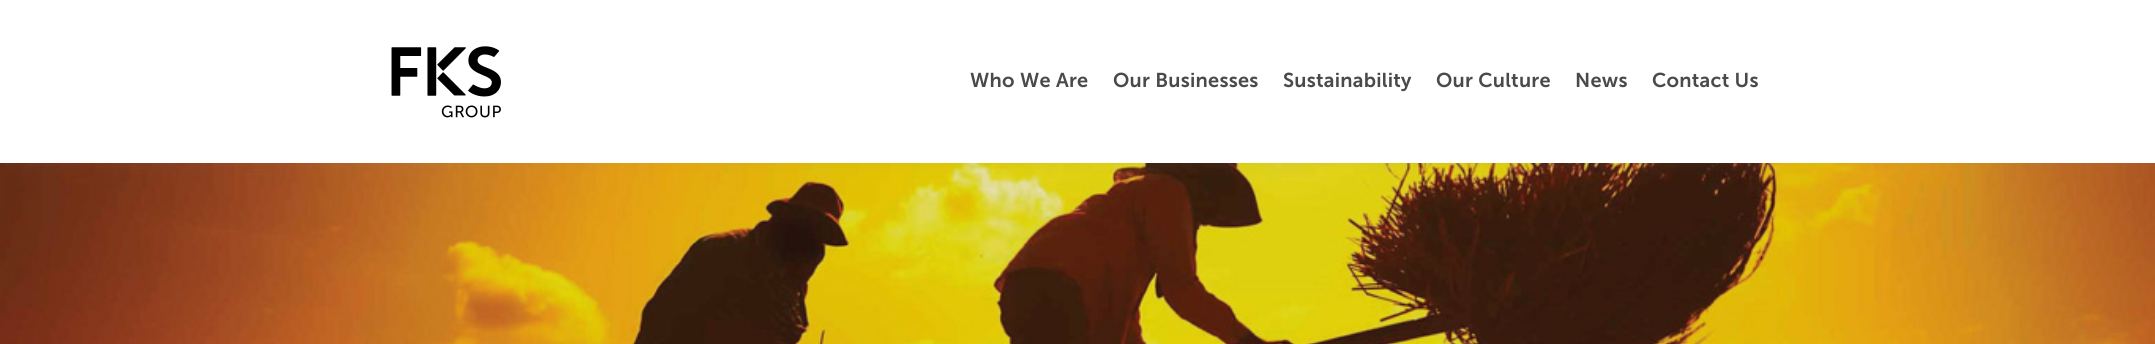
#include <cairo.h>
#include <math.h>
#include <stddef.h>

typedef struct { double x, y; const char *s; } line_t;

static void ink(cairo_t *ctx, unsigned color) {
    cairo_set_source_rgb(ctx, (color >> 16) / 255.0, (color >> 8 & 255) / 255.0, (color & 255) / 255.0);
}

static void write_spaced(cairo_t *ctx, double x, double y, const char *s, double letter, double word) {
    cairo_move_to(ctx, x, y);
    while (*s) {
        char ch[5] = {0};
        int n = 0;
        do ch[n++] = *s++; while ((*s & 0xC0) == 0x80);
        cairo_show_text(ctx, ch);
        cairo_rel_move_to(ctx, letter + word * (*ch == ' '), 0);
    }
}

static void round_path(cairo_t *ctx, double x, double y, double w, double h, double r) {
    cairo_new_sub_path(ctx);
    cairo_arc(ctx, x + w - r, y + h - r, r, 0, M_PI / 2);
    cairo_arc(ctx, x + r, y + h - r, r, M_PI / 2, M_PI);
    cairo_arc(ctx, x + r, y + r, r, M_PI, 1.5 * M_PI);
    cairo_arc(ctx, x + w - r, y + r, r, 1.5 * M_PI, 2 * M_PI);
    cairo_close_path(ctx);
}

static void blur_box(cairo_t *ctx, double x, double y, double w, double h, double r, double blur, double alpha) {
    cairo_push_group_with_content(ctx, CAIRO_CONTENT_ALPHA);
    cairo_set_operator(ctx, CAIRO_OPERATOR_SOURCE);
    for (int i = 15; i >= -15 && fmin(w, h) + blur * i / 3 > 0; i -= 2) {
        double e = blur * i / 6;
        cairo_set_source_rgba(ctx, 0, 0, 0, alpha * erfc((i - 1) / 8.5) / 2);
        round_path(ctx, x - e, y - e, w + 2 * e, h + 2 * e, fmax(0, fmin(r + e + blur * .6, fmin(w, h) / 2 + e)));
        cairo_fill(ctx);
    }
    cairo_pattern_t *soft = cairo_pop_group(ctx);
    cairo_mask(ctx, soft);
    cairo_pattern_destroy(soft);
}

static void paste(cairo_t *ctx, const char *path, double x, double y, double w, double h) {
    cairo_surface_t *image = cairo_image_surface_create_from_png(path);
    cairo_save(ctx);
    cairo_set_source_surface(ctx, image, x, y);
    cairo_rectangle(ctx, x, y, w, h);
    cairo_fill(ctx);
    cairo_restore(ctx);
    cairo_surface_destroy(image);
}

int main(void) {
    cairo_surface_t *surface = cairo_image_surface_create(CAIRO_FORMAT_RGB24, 2155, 344);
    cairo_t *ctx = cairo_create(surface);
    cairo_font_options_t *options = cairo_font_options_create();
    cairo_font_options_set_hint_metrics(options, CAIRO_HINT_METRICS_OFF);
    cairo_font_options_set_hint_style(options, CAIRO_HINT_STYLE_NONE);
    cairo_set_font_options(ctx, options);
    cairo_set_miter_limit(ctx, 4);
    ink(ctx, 0xFFFFFF);
    cairo_paint(ctx);
    paste(ctx, "media/2.png", 0, 163, 2155, 181);
    ink(ctx, 0x828286);
    blur_box(ctx, 0, 1, 2155, 163, 0, 6, 0.1);
    ink(ctx, 0xFFFFFF);
    cairo_rectangle(ctx, 0, 0, 2155, 163);
    cairo_fill(ctx);
    paste(ctx, "media/1.png", 391, 46, 110, 72);
    cairo_select_font_face(ctx, "Museo Sans SemiBold", CAIRO_FONT_SLANT_NORMAL, CAIRO_FONT_WEIGHT_NORMAL);
    cairo_set_font_size(ctx, 20);
    ink(ctx, 0x4A4A4A);
    {
        static const line_t items[] = {
            {970, 87, "Who We Are"},
            {1113, 87, "Our Businesses"},
            {1283, 87, "Sustainability"},
            {1436, 87, "Our Culture"},
            {1575, 87, "News"},
            {1652, 87, "Contact Us"},
        };
        for (size_t i = 0; i < sizeof items / sizeof *items; i++) {
            write_spaced(ctx, items[i].x, items[i].y, items[i].s, 0.25, 0);
        }
    }
    cairo_surface_write_to_png(surface, "image.png");
    cairo_font_options_destroy(options);
    cairo_destroy(ctx);
    cairo_surface_destroy(surface);
    return 0;
}
